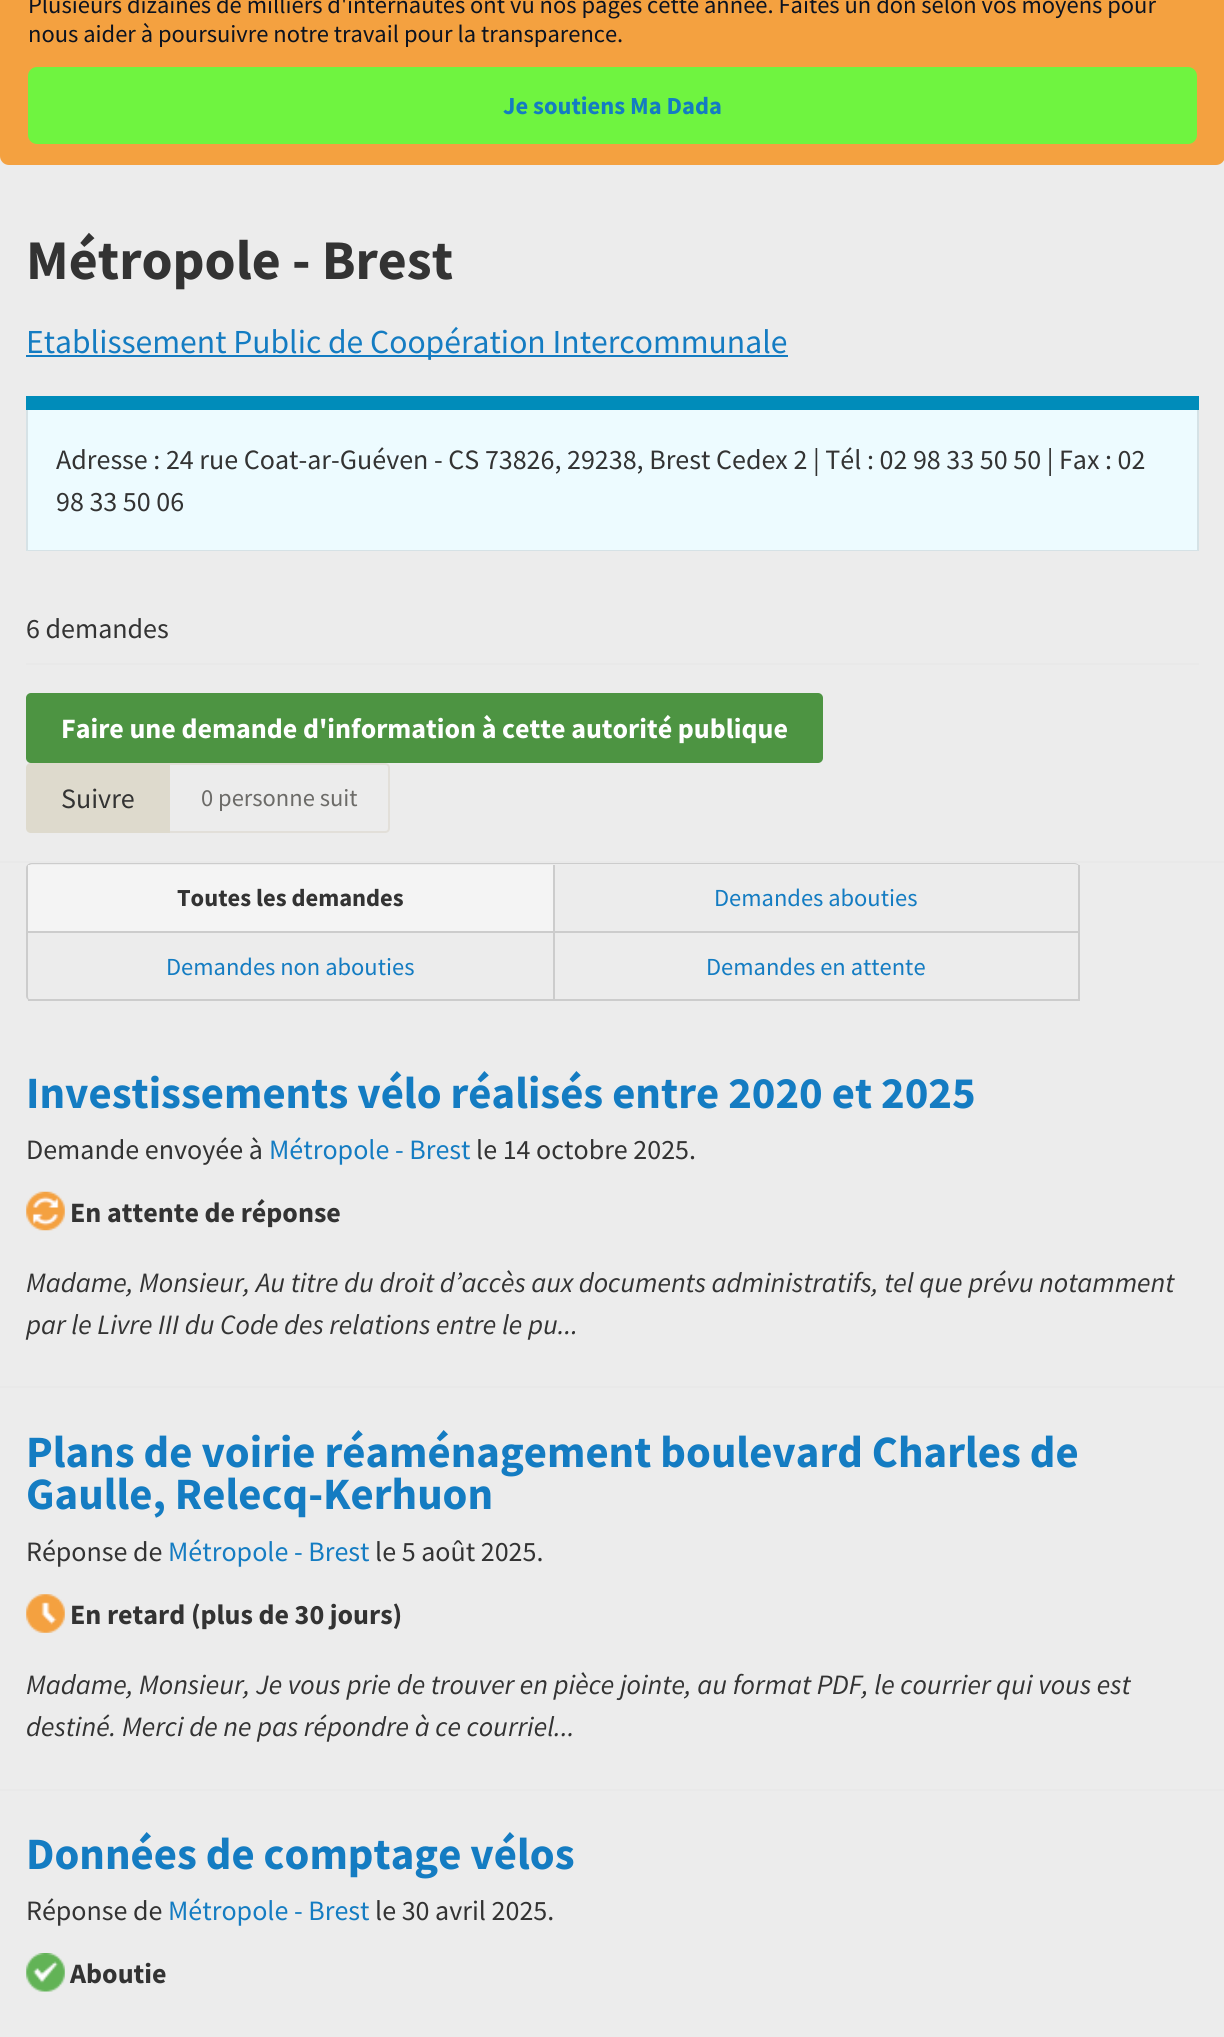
#include <cairo.h>
#include <math.h>
#include <stddef.h>

typedef struct { double x, y; const char *s; } line_t;
typedef struct { double x, y, w, h; unsigned color; } box_t;

static void ink(cairo_t *ctx, unsigned color) {
    cairo_set_source_rgb(ctx, (color >> 16) / 255.0, (color >> 8 & 255) / 255.0, (color & 255) / 255.0);
}

static void round_path(cairo_t *ctx, double x, double y, double w, double h, double r) {
    cairo_new_sub_path(ctx);
    cairo_arc(ctx, x + w - r, y + h - r, r, 0, M_PI / 2);
    cairo_arc(ctx, x + r, y + h - r, r, M_PI / 2, M_PI);
    cairo_arc(ctx, x + r, y + r, r, M_PI, 1.5 * M_PI);
    cairo_arc(ctx, x + w - r, y + r, r, 1.5 * M_PI, 2 * M_PI);
    cairo_close_path(ctx);
}

static void paste(cairo_t *ctx, const char *path, double x, double y, double w, double h) {
    cairo_surface_t *image = cairo_image_surface_create_from_png(path);
    cairo_save(ctx);
    cairo_set_source_surface(ctx, image, x, y);
    cairo_rectangle(ctx, x, y, w, h);
    cairo_fill(ctx);
    cairo_restore(ctx);
    cairo_surface_destroy(image);
}

int main(void) {
    cairo_surface_t *surface = cairo_image_surface_create(CAIRO_FORMAT_RGB24, 1224, 2037);
    cairo_t *ctx = cairo_create(surface);
    cairo_font_options_t *options = cairo_font_options_create();
    cairo_font_options_set_hint_metrics(options, CAIRO_HINT_METRICS_OFF);
    cairo_font_options_set_hint_style(options, CAIRO_HINT_STYLE_NONE);
    cairo_set_font_options(ctx, options);
    cairo_set_miter_limit(ctx, 4);
    ink(ctx, 0xECECEC);
    cairo_paint(ctx);
    ink(ctx, 0xF4A140);
    round_path(ctx, 0, -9, 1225, 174, 9);
    cairo_fill(ctx);
    cairo_select_font_face(ctx, "Source Sans Pro", CAIRO_FONT_SLANT_NORMAL, CAIRO_FONT_WEIGHT_NORMAL);
    cairo_set_font_size(ctx, 24.5);
    ink(ctx, 0x0B1220);
    cairo_move_to(ctx, 28, 13);
    cairo_show_text(ctx, "Plusieurs dizaines de milliers d'internautes ont vu nos pages cette année. Faites un don selon vos moyens pour");
    cairo_move_to(ctx, 28, 42);
    cairo_show_text(ctx, "nous aider à poursuivre notre travail pour la transparence.");
    ink(ctx, 0x6FF440);
    round_path(ctx, 28, 67, 1169, 77, 9);
    cairo_fill(ctx);
    cairo_select_font_face(ctx, "Source Sans Pro", CAIRO_FONT_SLANT_NORMAL, CAIRO_FONT_WEIGHT_BOLD);
    ink(ctx, 0x147CC2);
    cairo_move_to(ctx, 503, 114);
    cairo_show_text(ctx, "Je soutiens Ma Dada");
    ink(ctx, 0xE9E9E9);
    cairo_rectangle(ctx, 0, 861, 1224, 2);
    cairo_fill(ctx);
    cairo_set_font_size(ctx, 56);
    ink(ctx, 0x333333);
    cairo_move_to(ctx, 26, 279);
    cairo_show_text(ctx, "Métropole - Brest");
    ink(ctx, 0x147CC2);
    cairo_rectangle(ctx, 26, 355, 762, 2);
    cairo_fill(ctx);
    cairo_select_font_face(ctx, "Source Sans Pro", CAIRO_FONT_SLANT_NORMAL, CAIRO_FONT_WEIGHT_NORMAL);
    cairo_set_font_size(ctx, 33.6);
    cairo_move_to(ctx, 26, 353);
    cairo_show_text(ctx, "Etablissement Public de Coopération Intercommunale");
    ink(ctx, 0x008CBA);
    cairo_new_path(ctx);
    cairo_move_to(ctx, 26, 396);
    cairo_line_to(ctx, 26, 537);
    cairo_line_to(ctx, 26, 410);
    cairo_line_to(ctx, 1199, 410);
    cairo_line_to(ctx, 1199, 537);
    cairo_line_to(ctx, 1199, 396);
    cairo_close_path(ctx);
    cairo_fill(ctx);
    ink(ctx, 0xEDFBFF);
    cairo_rectangle(ctx, 26, 410, 1173, 141);
    cairo_fill(ctx);
    ink(ctx, 0xD5E2E6);
    cairo_new_path(ctx);
    cairo_move_to(ctx, 1199, 410);
    cairo_line_to(ctx, 1199, 551);
    cairo_line_to(ctx, 1197, 550);
    cairo_line_to(ctx, 1197, 410);
    cairo_close_path(ctx);
    cairo_fill(ctx);
    cairo_set_source_rgba(ctx, 0, 0, 0, 0.1);
    cairo_new_path(ctx);
    cairo_move_to(ctx, 1199, 551);
    cairo_line_to(ctx, 26, 551);
    cairo_line_to(ctx, 28, 550);
    cairo_line_to(ctx, 1197, 550);
    cairo_close_path(ctx);
    cairo_fill(ctx);
    cairo_new_path(ctx);
    cairo_move_to(ctx, 26, 551);
    cairo_line_to(ctx, 26, 410);
    cairo_line_to(ctx, 28, 410);
    cairo_line_to(ctx, 28, 550);
    cairo_close_path(ctx);
    cairo_fill(ctx);
    cairo_set_font_size(ctx, 28);
    ink(ctx, 0x333333);
    {
        static const line_t items[] = {
            {56, 469, "Adresse : 24 rue Coat-ar-Guéven - CS 73826, 29238, Brest Cedex 2 | Tél : 02 98 33 50 50 | Fax : 02"},
            {56, 511, "98 33 50 06"},
            {26, 638, "6 demandes"},
        };
        for (size_t i = 0; i < sizeof items / sizeof *items; i++) {
            cairo_move_to(ctx, items[i].x, items[i].y);
            cairo_show_text(ctx, items[i].s);
        }
    }
    ink(ctx, 0xE9E9E9);
    cairo_rectangle(ctx, 26, 663, 1173, 2);
    cairo_fill(ctx);
    ink(ctx, 0x4D9442);
    round_path(ctx, 26, 693, 797, 70, 5);
    cairo_fill(ctx);
    cairo_select_font_face(ctx, "Source Sans Pro", CAIRO_FONT_SLANT_NORMAL, CAIRO_FONT_WEIGHT_BOLD);
    ink(ctx, 0xFFFFFF);
    cairo_move_to(ctx, 61, 738);
    cairo_show_text(ctx, "Faire une demande d'information à cette autorité publique");
    ink(ctx, 0xDEDACD);
    cairo_new_path(ctx);
    cairo_move_to(ctx, 31, 763);
    cairo_line_to(ctx, 170, 763);
    cairo_line_to(ctx, 170, 833);
    cairo_line_to(ctx, 31, 833);
    cairo_curve_to(ctx, 28, 833, 26, 831, 26, 828);
    cairo_line_to(ctx, 26, 768);
    cairo_curve_to(ctx, 26, 765, 28, 763, 31, 763);
    cairo_close_path(ctx);
    cairo_fill(ctx);
    cairo_select_font_face(ctx, "Source Sans Pro", CAIRO_FONT_SLANT_NORMAL, CAIRO_FONT_WEIGHT_NORMAL);
    ink(ctx, 0x333333);
    cairo_move_to(ctx, 61, 808);
    cairo_show_text(ctx, "Suivre");
    ink(ctx, 0xE2DFD9);
    cairo_set_fill_rule(ctx, CAIRO_FILL_RULE_EVEN_ODD);
    cairo_new_path(ctx);
    cairo_move_to(ctx, 170, 763);
    cairo_line_to(ctx, 385, 763);
    cairo_curve_to(ctx, 388, 763, 390, 765, 390, 768);
    cairo_line_to(ctx, 390, 828);
    cairo_curve_to(ctx, 390, 831, 388, 833, 385, 833);
    cairo_line_to(ctx, 170, 833);
    cairo_close_path(ctx);
    cairo_move_to(ctx, 170, 765);
    cairo_line_to(ctx, 385, 765);
    cairo_curve_to(ctx, 387, 765, 388, 766, 388, 768);
    cairo_line_to(ctx, 388, 828);
    cairo_curve_to(ctx, 388, 830, 387, 831, 385, 831);
    cairo_line_to(ctx, 170, 831);
    cairo_close_path(ctx);
    cairo_fill(ctx);
    cairo_set_font_size(ctx, 24.5);
    ink(ctx, 0x6C6B68);
    cairo_move_to(ctx, 201, 806);
    cairo_show_text(ctx, "0 personne suit");
    ink(ctx, 0xCCCCCC);
    cairo_new_path(ctx);
    cairo_move_to(ctx, 32, 863);
    cairo_line_to(ctx, 1074, 863);
    cairo_curve_to(ctx, 1077, 863, 1080, 865, 1080, 868);
    cairo_line_to(ctx, 1080, 996);
    cairo_curve_to(ctx, 1080, 999, 1077, 1001, 1074, 1001);
    cairo_line_to(ctx, 32, 1001);
    cairo_curve_to(ctx, 29, 1001, 26, 999, 26, 996);
    cairo_line_to(ctx, 26, 868);
    cairo_curve_to(ctx, 26, 865, 29, 863, 32, 863);
    cairo_close_path(ctx);
    cairo_move_to(ctx, 32, 864);
    cairo_line_to(ctx, 1074, 864);
    cairo_curve_to(ctx, 1077, 864, 1080, 866, 1080, 868);
    cairo_line_to(ctx, 1080, 996);
    cairo_curve_to(ctx, 1080, 999, 1077, 1001, 1074, 1001);
    cairo_line_to(ctx, 32, 1001);
    cairo_curve_to(ctx, 30, 1001, 28, 999, 28, 996);
    cairo_line_to(ctx, 28, 868);
    cairo_curve_to(ctx, 28, 866, 30, 864, 32, 864);
    cairo_close_path(ctx);
    cairo_fill(ctx);
    {
        static const box_t items[] = {
            {28, 865, 525, 66, 0xF4F4F4},
            {553, 865, 2, 136, 0xCCCCCC},
            {28, 931, 527, 2, 0xCCCCCC},
        };
        for (size_t i = 0; i < sizeof items / sizeof *items; i++) {
            ink(ctx, items[i].color);
            cairo_rectangle(ctx, items[i].x, items[i].y, items[i].w, items[i].h);
            cairo_fill(ctx);
        }
    }
    cairo_select_font_face(ctx, "Source Sans Pro", CAIRO_FONT_SLANT_NORMAL, CAIRO_FONT_WEIGHT_BOLD);
    ink(ctx, 0x333333);
    cairo_move_to(ctx, 177, 906);
    cairo_show_text(ctx, "Toutes les demandes");
    ink(ctx, 0xCCCCCC);
    cairo_rectangle(ctx, 1078, 865, 2, 136);
    cairo_fill(ctx);
    cairo_rectangle(ctx, 555, 931, 525, 2);
    cairo_fill(ctx);
    cairo_select_font_face(ctx, "Source Sans Pro", CAIRO_FONT_SLANT_NORMAL, CAIRO_FONT_WEIGHT_NORMAL);
    ink(ctx, 0x147CC2);
    cairo_move_to(ctx, 714, 906);
    cairo_show_text(ctx, "Demandes abouties");
    ink(ctx, 0xCCCCCC);
    cairo_rectangle(ctx, 28, 999, 1052, 2);
    cairo_fill(ctx);
    ink(ctx, 0x147CC2);
    cairo_move_to(ctx, 166, 975);
    cairo_show_text(ctx, "Demandes non abouties");
    cairo_move_to(ctx, 706, 975);
    cairo_show_text(ctx, "Demandes en attente");
    ink(ctx, 0xE9E9E9);
    cairo_rectangle(ctx, 0, 1386, 1224, 2);
    cairo_fill(ctx);
    cairo_select_font_face(ctx, "Source Sans Pro", CAIRO_FONT_SLANT_NORMAL, CAIRO_FONT_WEIGHT_BOLD);
    cairo_set_font_size(ctx, 44.8);
    ink(ctx, 0x147CC2);
    cairo_move_to(ctx, 26, 1108);
    cairo_show_text(ctx, "Investissements vélo réalisés entre 2020 et 2025");
    cairo_select_font_face(ctx, "Source Sans Pro", CAIRO_FONT_SLANT_NORMAL, CAIRO_FONT_WEIGHT_NORMAL);
    cairo_set_font_size(ctx, 28);
    ink(ctx, 0x333333);
    cairo_move_to(ctx, 26, 1159);
    cairo_show_text(ctx, "Demande envoyée à");
    ink(ctx, 0x147CC2);
    cairo_move_to(ctx, 269, 1159);
    cairo_show_text(ctx, "Métropole - Brest");
    ink(ctx, 0x333333);
    cairo_move_to(ctx, 476, 1159);
    cairo_show_text(ctx, "le 14 octobre 2025.");
    paste(ctx, "media/1.png", 26, 1191, 39, 40);
    cairo_select_font_face(ctx, "Source Sans Pro", CAIRO_FONT_SLANT_NORMAL, CAIRO_FONT_WEIGHT_BOLD);
    cairo_move_to(ctx, 70, 1222);
    cairo_show_text(ctx, "En attente de réponse");
    cairo_select_font_face(ctx, "Source Sans Pro", CAIRO_FONT_SLANT_ITALIC, CAIRO_FONT_WEIGHT_NORMAL);
    cairo_move_to(ctx, 26, 1292);
    cairo_show_text(ctx, "Madame, Monsieur, Au titre du droit d’accès aux documents administratifs, tel que prévu notamment");
    cairo_move_to(ctx, 26, 1334);
    cairo_show_text(ctx, "par le Livre III du Code des relations entre le pu...");
    ink(ctx, 0xE9E9E9);
    cairo_rectangle(ctx, 0, 1789, 1224, 2);
    cairo_fill(ctx);
    cairo_select_font_face(ctx, "Source Sans Pro", CAIRO_FONT_SLANT_NORMAL, CAIRO_FONT_WEIGHT_BOLD);
    cairo_set_font_size(ctx, 44.8);
    ink(ctx, 0x147CC2);
    cairo_move_to(ctx, 26, 1467);
    cairo_show_text(ctx, "Plans de voirie réaménagement boulevard Charles de");
    cairo_move_to(ctx, 26, 1509);
    cairo_show_text(ctx, "Gaulle, Relecq-Kerhuon");
    cairo_select_font_face(ctx, "Source Sans Pro", CAIRO_FONT_SLANT_NORMAL, CAIRO_FONT_WEIGHT_NORMAL);
    cairo_set_font_size(ctx, 28);
    ink(ctx, 0x333333);
    cairo_move_to(ctx, 26, 1561);
    cairo_show_text(ctx, "Réponse de");
    ink(ctx, 0x147CC2);
    cairo_move_to(ctx, 168, 1561);
    cairo_show_text(ctx, "Métropole - Brest");
    ink(ctx, 0x333333);
    cairo_move_to(ctx, 375, 1561);
    cairo_show_text(ctx, "le 5 août 2025.");
    paste(ctx, "media/2.png", 26, 1594, 39, 39);
    cairo_select_font_face(ctx, "Source Sans Pro", CAIRO_FONT_SLANT_NORMAL, CAIRO_FONT_WEIGHT_BOLD);
    cairo_move_to(ctx, 70, 1624);
    cairo_show_text(ctx, "En retard (plus de 30 jours)");
    cairo_select_font_face(ctx, "Source Sans Pro", CAIRO_FONT_SLANT_ITALIC, CAIRO_FONT_WEIGHT_NORMAL);
    cairo_move_to(ctx, 26, 1694);
    cairo_show_text(ctx, "Madame, Monsieur, Je vous prie de trouver en pièce jointe, au format PDF, le courrier qui vous est");
    cairo_move_to(ctx, 26, 1736);
    cairo_show_text(ctx, "destiné. Merci de ne pas répondre à ce courriel...");
    cairo_select_font_face(ctx, "Source Sans Pro", CAIRO_FONT_SLANT_NORMAL, CAIRO_FONT_WEIGHT_BOLD);
    cairo_set_font_size(ctx, 44.8);
    ink(ctx, 0x147CC2);
    cairo_move_to(ctx, 26, 1869);
    cairo_show_text(ctx, "Données de comptage vélos");
    cairo_select_font_face(ctx, "Source Sans Pro", CAIRO_FONT_SLANT_NORMAL, CAIRO_FONT_WEIGHT_NORMAL);
    cairo_set_font_size(ctx, 28);
    ink(ctx, 0x333333);
    cairo_move_to(ctx, 26, 1920);
    cairo_show_text(ctx, "Réponse de");
    ink(ctx, 0x147CC2);
    cairo_move_to(ctx, 168, 1920);
    cairo_show_text(ctx, "Métropole - Brest");
    ink(ctx, 0x333333);
    cairo_move_to(ctx, 375, 1920);
    cairo_show_text(ctx, "le 30 avril 2025.");
    paste(ctx, "media/3.png", 26, 1953, 39, 39);
    cairo_select_font_face(ctx, "Source Sans Pro", CAIRO_FONT_SLANT_NORMAL, CAIRO_FONT_WEIGHT_BOLD);
    cairo_move_to(ctx, 70, 1983);
    cairo_show_text(ctx, "Aboutie");
    cairo_surface_write_to_png(surface, "image.png");
    cairo_font_options_destroy(options);
    cairo_destroy(ctx);
    cairo_surface_destroy(surface);
    return 0;
}
